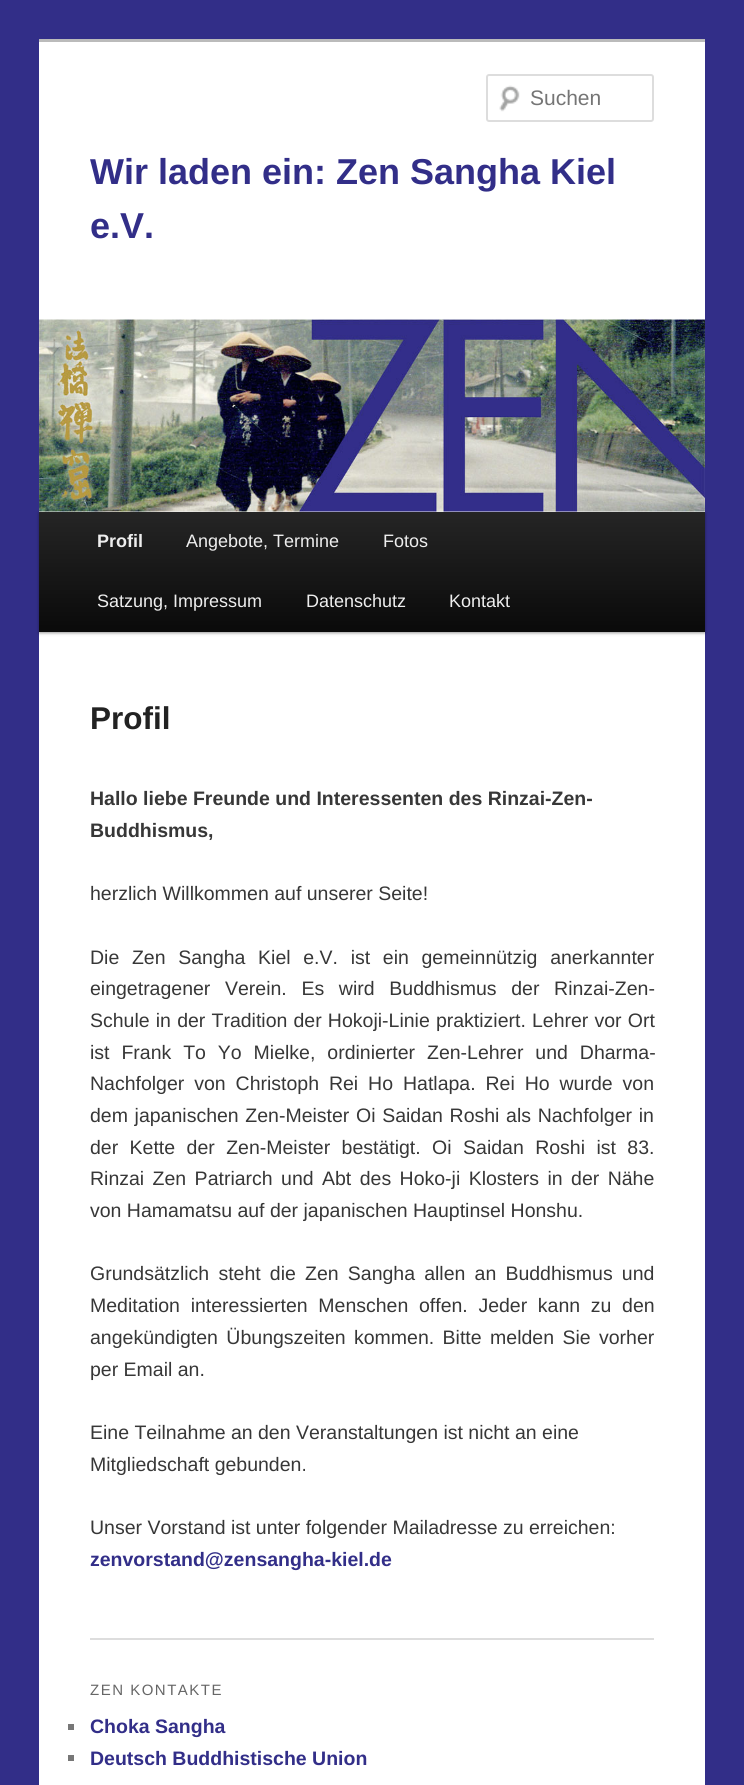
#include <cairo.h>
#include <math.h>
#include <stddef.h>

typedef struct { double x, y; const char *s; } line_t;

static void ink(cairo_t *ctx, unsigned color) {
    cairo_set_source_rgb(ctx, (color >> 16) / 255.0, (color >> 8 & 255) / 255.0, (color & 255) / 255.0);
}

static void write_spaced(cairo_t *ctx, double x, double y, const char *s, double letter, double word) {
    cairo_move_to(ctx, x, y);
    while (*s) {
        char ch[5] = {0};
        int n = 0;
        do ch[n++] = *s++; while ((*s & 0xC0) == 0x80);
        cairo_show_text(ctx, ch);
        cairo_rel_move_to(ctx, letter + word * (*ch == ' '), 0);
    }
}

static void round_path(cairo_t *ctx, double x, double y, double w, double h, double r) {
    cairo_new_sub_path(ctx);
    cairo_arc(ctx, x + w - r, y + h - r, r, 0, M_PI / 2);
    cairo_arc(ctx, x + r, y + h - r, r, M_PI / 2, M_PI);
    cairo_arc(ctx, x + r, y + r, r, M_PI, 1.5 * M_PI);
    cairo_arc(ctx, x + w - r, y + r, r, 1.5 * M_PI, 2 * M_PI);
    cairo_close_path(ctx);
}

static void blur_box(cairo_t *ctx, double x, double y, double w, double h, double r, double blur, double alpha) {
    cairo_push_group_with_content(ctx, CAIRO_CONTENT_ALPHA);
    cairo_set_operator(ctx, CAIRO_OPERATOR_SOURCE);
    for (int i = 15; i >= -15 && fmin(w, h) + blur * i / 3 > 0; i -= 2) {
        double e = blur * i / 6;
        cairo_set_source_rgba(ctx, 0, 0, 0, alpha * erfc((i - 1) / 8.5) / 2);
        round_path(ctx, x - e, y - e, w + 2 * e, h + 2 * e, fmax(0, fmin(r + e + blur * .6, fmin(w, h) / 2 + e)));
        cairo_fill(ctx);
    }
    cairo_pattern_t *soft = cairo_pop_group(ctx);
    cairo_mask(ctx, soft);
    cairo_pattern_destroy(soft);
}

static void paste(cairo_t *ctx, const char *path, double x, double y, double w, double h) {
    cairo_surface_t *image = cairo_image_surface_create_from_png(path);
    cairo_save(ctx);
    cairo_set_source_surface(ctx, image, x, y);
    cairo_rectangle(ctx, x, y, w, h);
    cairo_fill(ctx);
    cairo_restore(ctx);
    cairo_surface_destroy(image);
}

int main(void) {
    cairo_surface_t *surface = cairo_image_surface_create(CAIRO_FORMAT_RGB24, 744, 1785);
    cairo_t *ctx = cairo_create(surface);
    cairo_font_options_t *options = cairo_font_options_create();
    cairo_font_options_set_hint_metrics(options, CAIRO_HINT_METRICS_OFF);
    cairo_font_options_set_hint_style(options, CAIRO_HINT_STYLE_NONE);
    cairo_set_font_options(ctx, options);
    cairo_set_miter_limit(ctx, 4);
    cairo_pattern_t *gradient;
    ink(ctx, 0x322E88);
    cairo_paint(ctx);
    ink(ctx, 0xFFFFFF);
    cairo_rectangle(ctx, 39, 42, 666, 1743);
    cairo_fill(ctx);
    ink(ctx, 0xBBBBBB);
    cairo_rectangle(ctx, 39, 39, 666, 3);
    cairo_fill(ctx);
    paste(ctx, "media/1.png", 499, 85, 21, 27);
    round_path(ctx, 487, 75, 166, 46, 2);
    ink(ctx, 0xDDDDDD);
    cairo_stroke(ctx);
    cairo_select_font_face(ctx, "Liberation Sans", CAIRO_FONT_SLANT_NORMAL, CAIRO_FONT_WEIGHT_NORMAL);
    cairo_set_font_size(ctx, 21);
    ink(ctx, 0x757575);
    cairo_move_to(ctx, 530, 105);
    cairo_show_text(ctx, "Suchen");
    cairo_select_font_face(ctx, "Liberation Sans", CAIRO_FONT_SLANT_NORMAL, CAIRO_FONT_WEIGHT_BOLD);
    cairo_set_font_size(ctx, 36);
    ink(ctx, 0x322E88);
    cairo_move_to(ctx, 90, 184);
    cairo_show_text(ctx, "Wir laden ein: Zen Sangha Kiel");
    cairo_move_to(ctx, 90, 238);
    cairo_show_text(ctx, "e.V.");
    ink(ctx, 0x000000);
    blur_box(ctx, 39, 513, 666, 120, 0, 1.5, 0.4);
    paste(ctx, "media/2.png", 39, 319, 666, 193);
    gradient = cairo_pattern_create_linear(372, 512, 372, 632);
    cairo_pattern_add_color_stop_rgba(gradient, 0, 0.145, 0.145, 0.145, 1);
    cairo_pattern_add_color_stop_rgba(gradient, 1, 0.039, 0.039, 0.039, 1);
    cairo_set_source(ctx, gradient);
    cairo_pattern_destroy(gradient);
    cairo_rectangle(ctx, 39, 512, 666, 120);
    cairo_fill(ctx);
    cairo_set_font_size(ctx, 18);
    ink(ctx, 0xEEEEEE);
    cairo_move_to(ctx, 97, 547);
    cairo_show_text(ctx, "Profil");
    cairo_select_font_face(ctx, "Liberation Sans", CAIRO_FONT_SLANT_NORMAL, CAIRO_FONT_WEIGHT_NORMAL);
    {
        static const line_t items[] = {
            {186, 547, "Angebote, Termine"},
            {383, 547, "Fotos"},
            {97, 607, "Satzung, Impressum"},
            {306, 607, "Datenschutz"},
            {449, 607, "Kontakt"},
        };
        for (size_t i = 0; i < sizeof items / sizeof *items; i++) {
            cairo_move_to(ctx, items[i].x, items[i].y);
            cairo_show_text(ctx, items[i].s);
        }
    }
    ink(ctx, 0xDDDDDD);
    cairo_rectangle(ctx, 90, 1638, 564, 2);
    cairo_fill(ctx);
    cairo_select_font_face(ctx, "Liberation Sans", CAIRO_FONT_SLANT_NORMAL, CAIRO_FONT_WEIGHT_BOLD);
    cairo_set_font_size(ctx, 31.5);
    ink(ctx, 0x222222);
    cairo_move_to(ctx, 90, 729);
    cairo_show_text(ctx, "Profil");
    cairo_set_font_size(ctx, 19.5);
    ink(ctx, 0x373737);
    cairo_move_to(ctx, 90, 805);
    cairo_show_text(ctx, "Hallo liebe Freunde und Interessenten des Rinzai-Zen-");
    cairo_move_to(ctx, 90, 837);
    cairo_show_text(ctx, "Buddhismus,");
    cairo_select_font_face(ctx, "Liberation Sans", CAIRO_FONT_SLANT_NORMAL, CAIRO_FONT_WEIGHT_NORMAL);
    cairo_move_to(ctx, 90, 900);
    cairo_show_text(ctx, "herzlich Willkommen auf unserer Seite!");
    write_spaced(ctx, 90, 964, "Die Zen Sangha Kiel e.V. ist ein gemeinnützig anerkannter", 0, 7.25);
    write_spaced(ctx, 90, 995, "eingetragener Verein. Es wird Buddhismus der Rinzai-Zen-", 0, 9.25);
    write_spaced(ctx, 90, 1027, "Schule in der Tradition der Hokoji-Linie praktiziert. Lehrer vor Ort", 0, 0.75);
    write_spaced(ctx, 90, 1059, "ist Frank To Yo Mielke, ordinierter Zen-Lehrer und Dharma-", 0, 6.5);
    write_spaced(ctx, 90, 1090, "Nachfolger von Christoph Rei Ho Hatlapa. Rei Ho wurde von", 0, 4.5);
    write_spaced(ctx, 90, 1122, "dem japanischen Zen-Meister Oi Saidan Roshi als Nachfolger in", 0, 1.25);
    write_spaced(ctx, 90, 1154, "der Kette der Zen-Meister bestätigt. Oi Saidan Roshi ist 83.", 0, 6);
    write_spaced(ctx, 90, 1185, "Rinzai Zen Patriarch und Abt des Hoko-ji Klosters in der Nähe", 0, 3);
    cairo_move_to(ctx, 90, 1217);
    cairo_show_text(ctx, "von Hamamatsu auf der japanischen Hauptinsel Honshu.");
    write_spaced(ctx, 90, 1280, "Grundsätzlich steht die Zen Sangha allen an Buddhismus und", 0, 3.75);
    write_spaced(ctx, 90, 1312, "Meditation interessierten Menschen offen. Jeder kann zu den", 0, 5.25);
    write_spaced(ctx, 90, 1344, "angekündigten Übungszeiten kommen. Bitte melden Sie vorher", 0, 3);
    {
        static const line_t items[] = {
            {90, 1376, "per Email an."},
            {90, 1439, "Eine Teilnahme an den Veranstaltungen ist nicht an eine"},
            {90, 1471, "Mitgliedschaft gebunden."},
            {90, 1534, "Unser Vorstand ist unter folgender Mailadresse zu erreichen:"},
        };
        for (size_t i = 0; i < sizeof items / sizeof *items; i++) {
            cairo_move_to(ctx, items[i].x, items[i].y);
            cairo_show_text(ctx, items[i].s);
        }
    }
    cairo_select_font_face(ctx, "Liberation Sans", CAIRO_FONT_SLANT_NORMAL, CAIRO_FONT_WEIGHT_BOLD);
    ink(ctx, 0x322E88);
    cairo_move_to(ctx, 90, 1566);
    cairo_show_text(ctx, "zenvorstand@zensangha-kiel.de");
    cairo_select_font_face(ctx, "Liberation Sans", CAIRO_FONT_SLANT_NORMAL, CAIRO_FONT_WEIGHT_NORMAL);
    cairo_set_font_size(ctx, 15);
    ink(ctx, 0x666666);
    write_spaced(ctx, 90, 1695, "ZEN KONTAKTE", 1.5, 0);
    ink(ctx, 0x777777);
    cairo_rectangle(ctx, 68, 1724, 6, 6);
    cairo_fill(ctx);
    cairo_select_font_face(ctx, "Liberation Sans", CAIRO_FONT_SLANT_NORMAL, CAIRO_FONT_WEIGHT_BOLD);
    cairo_set_font_size(ctx, 19.5);
    ink(ctx, 0x322E88);
    cairo_move_to(ctx, 90, 1733);
    cairo_show_text(ctx, "Choka Sangha");
    ink(ctx, 0x777777);
    cairo_rectangle(ctx, 68, 1755, 6, 6);
    cairo_fill(ctx);
    ink(ctx, 0x322E88);
    cairo_move_to(ctx, 90, 1765);
    cairo_show_text(ctx, "Deutsch Buddhistische Union");
    cairo_surface_write_to_png(surface, "image.png");
    cairo_font_options_destroy(options);
    cairo_destroy(ctx);
    cairo_surface_destroy(surface);
    return 0;
}
